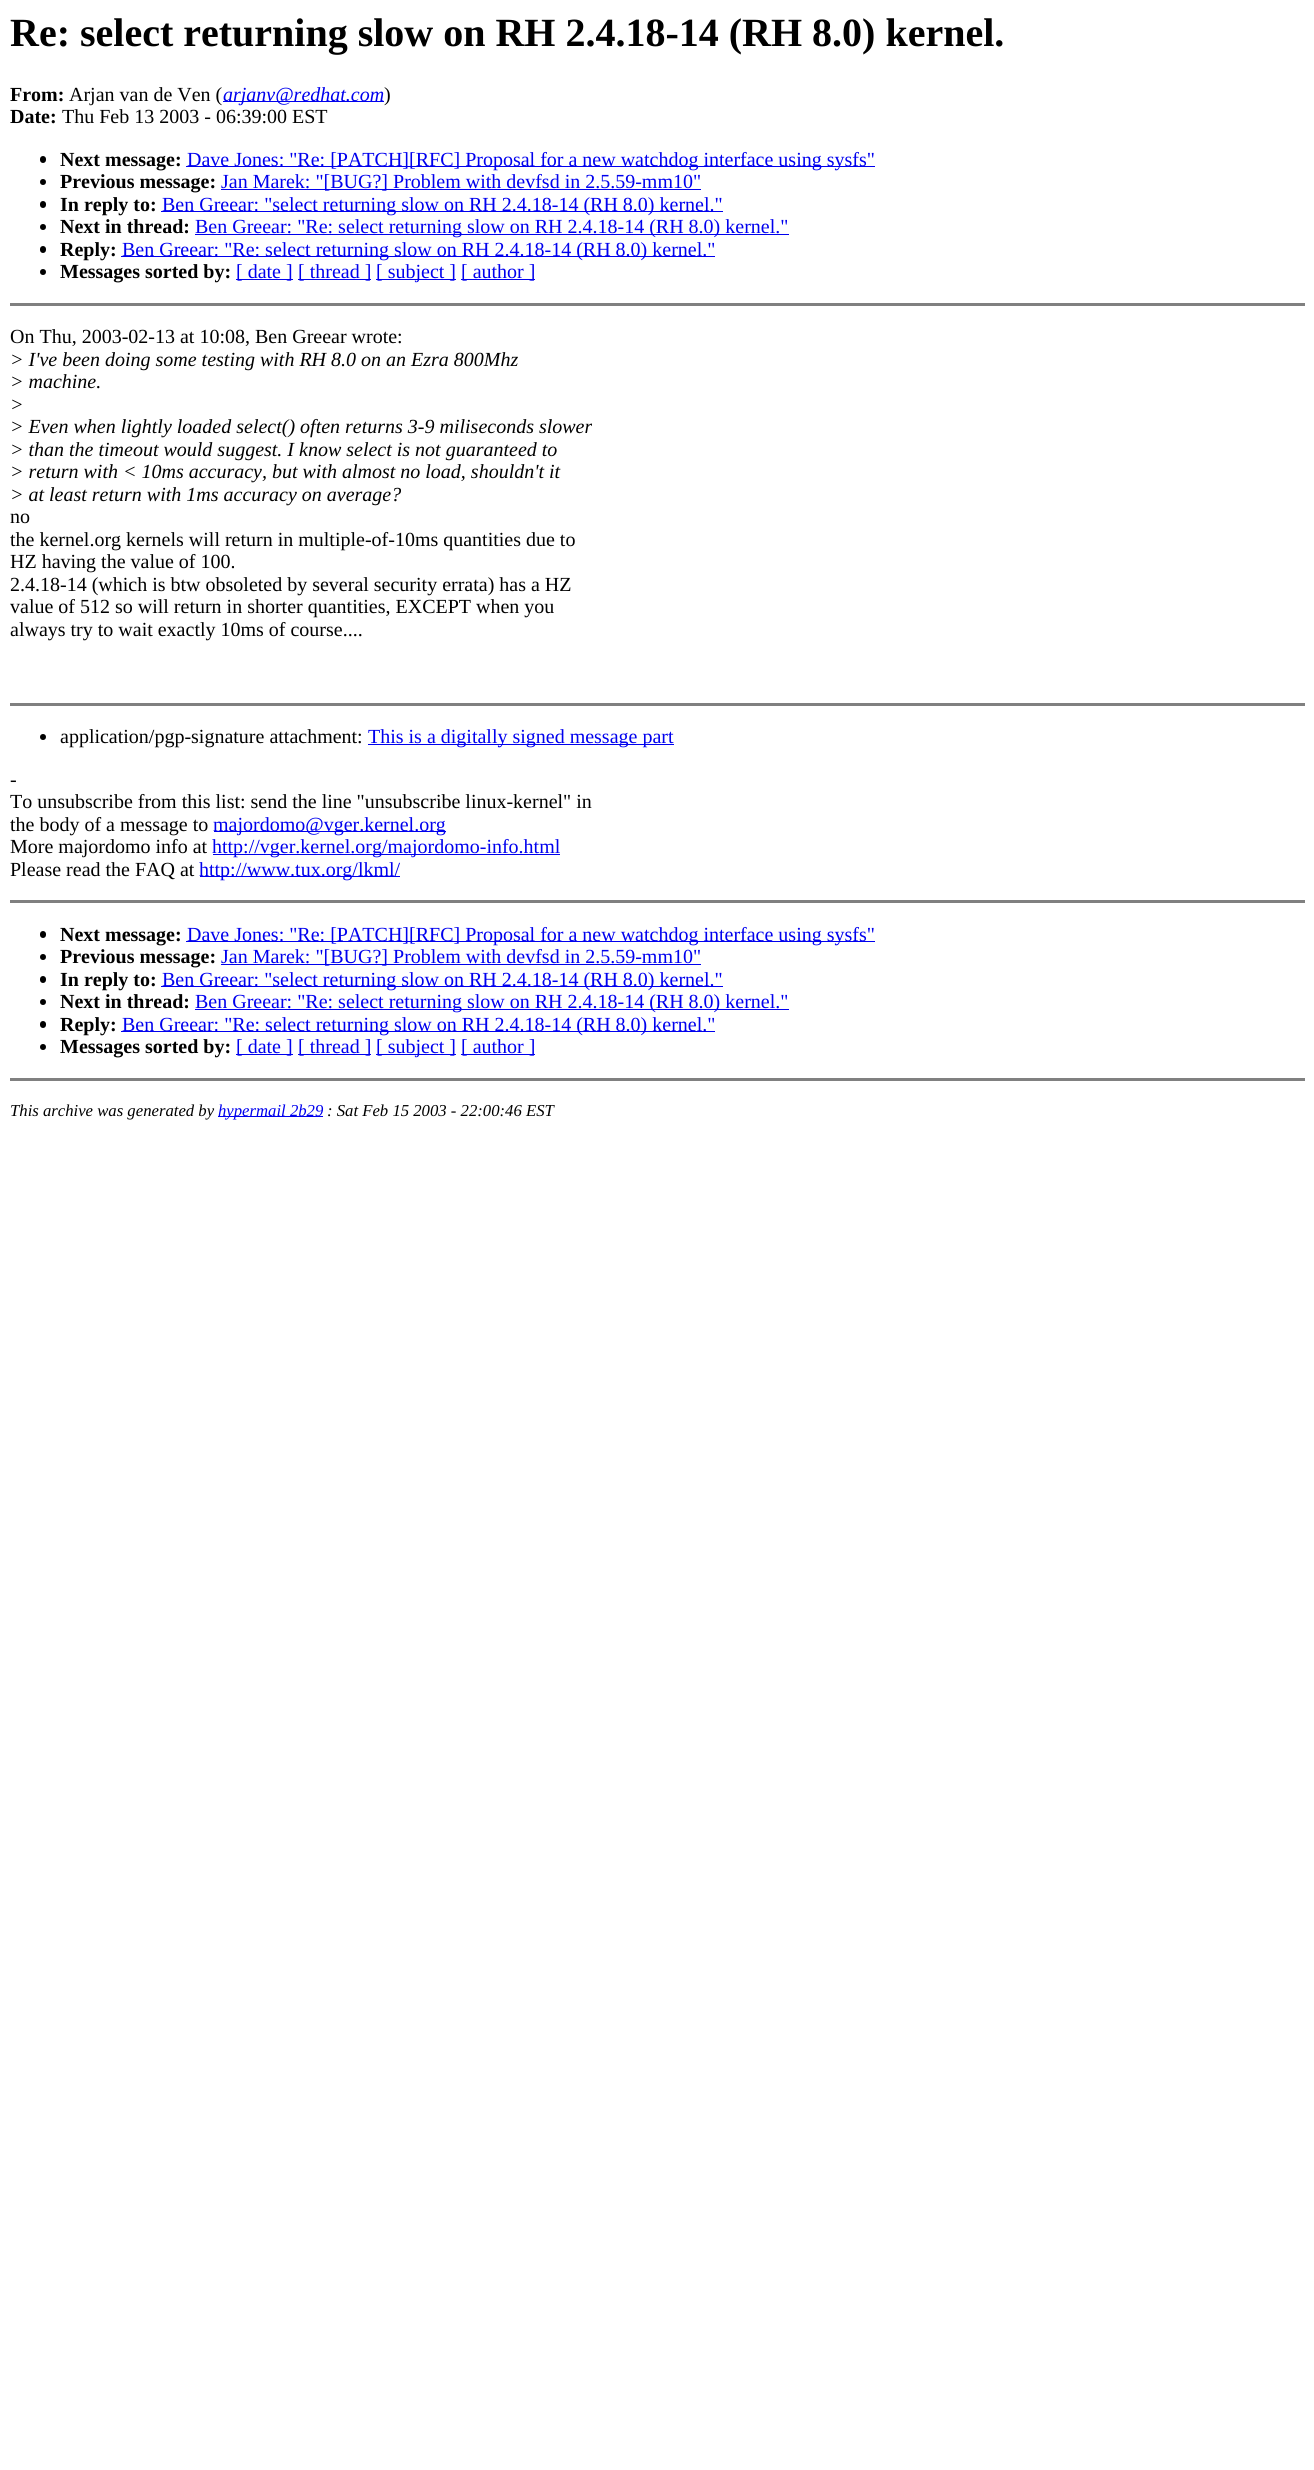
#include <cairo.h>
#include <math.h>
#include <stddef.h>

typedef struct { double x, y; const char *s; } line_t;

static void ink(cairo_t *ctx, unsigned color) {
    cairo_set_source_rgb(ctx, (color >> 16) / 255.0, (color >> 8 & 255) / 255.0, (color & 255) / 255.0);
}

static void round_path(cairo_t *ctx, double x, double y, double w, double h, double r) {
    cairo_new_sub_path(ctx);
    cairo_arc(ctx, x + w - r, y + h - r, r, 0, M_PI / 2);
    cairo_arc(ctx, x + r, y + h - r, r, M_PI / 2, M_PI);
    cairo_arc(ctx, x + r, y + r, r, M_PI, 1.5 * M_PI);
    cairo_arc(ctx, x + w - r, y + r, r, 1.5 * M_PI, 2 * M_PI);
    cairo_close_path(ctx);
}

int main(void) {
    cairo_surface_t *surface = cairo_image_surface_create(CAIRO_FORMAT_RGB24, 1314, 2470);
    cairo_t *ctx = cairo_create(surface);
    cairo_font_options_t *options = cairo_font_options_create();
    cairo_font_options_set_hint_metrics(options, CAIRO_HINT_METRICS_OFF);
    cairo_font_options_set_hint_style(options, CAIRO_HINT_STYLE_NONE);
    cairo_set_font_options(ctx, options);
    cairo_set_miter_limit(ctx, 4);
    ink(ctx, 0xFFFFFF);
    cairo_paint(ctx);
    cairo_select_font_face(ctx, "Liberation Serif", CAIRO_FONT_SLANT_NORMAL, CAIRO_FONT_WEIGHT_BOLD);
    cairo_set_font_size(ctx, 40);
    ink(ctx, 0x000000);
    cairo_move_to(ctx, 10, 46);
    cairo_show_text(ctx, "Re: select returning slow on RH 2.4.18-14 (RH 8.0) kernel.");
    cairo_set_font_size(ctx, 20);
    cairo_move_to(ctx, 10, 101);
    cairo_show_text(ctx, "From:");
    cairo_select_font_face(ctx, "Liberation Serif", CAIRO_FONT_SLANT_NORMAL, CAIRO_FONT_WEIGHT_NORMAL);
    cairo_move_to(ctx, 69, 101);
    cairo_show_text(ctx, "Arjan van de Ven (");
    ink(ctx, 0x0000EE);
    cairo_rectangle(ctx, 223, 101, 161, 1);
    cairo_fill(ctx);
    cairo_select_font_face(ctx, "Liberation Serif", CAIRO_FONT_SLANT_ITALIC, CAIRO_FONT_WEIGHT_NORMAL);
    cairo_move_to(ctx, 223, 101);
    cairo_show_text(ctx, "arjanv@redhat.com");
    cairo_select_font_face(ctx, "Liberation Serif", CAIRO_FONT_SLANT_NORMAL, CAIRO_FONT_WEIGHT_NORMAL);
    ink(ctx, 0x000000);
    cairo_move_to(ctx, 384, 101);
    cairo_show_text(ctx, ")");
    cairo_select_font_face(ctx, "Liberation Serif", CAIRO_FONT_SLANT_NORMAL, CAIRO_FONT_WEIGHT_BOLD);
    cairo_move_to(ctx, 10, 123);
    cairo_show_text(ctx, "Date:");
    cairo_select_font_face(ctx, "Liberation Serif", CAIRO_FONT_SLANT_NORMAL, CAIRO_FONT_WEIGHT_NORMAL);
    cairo_move_to(ctx, 62, 123);
    cairo_show_text(ctx, "Thu Feb 13 2003 - 06:39:00 EST");
    round_path(ctx, 40, 156, 6, 7, 3);
    cairo_fill(ctx);
    cairo_select_font_face(ctx, "Liberation Serif", CAIRO_FONT_SLANT_NORMAL, CAIRO_FONT_WEIGHT_BOLD);
    cairo_move_to(ctx, 60, 166);
    cairo_show_text(ctx, "Next message:");
    ink(ctx, 0x0000EE);
    cairo_rectangle(ctx, 186, 166, 689, 1);
    cairo_fill(ctx);
    cairo_select_font_face(ctx, "Liberation Serif", CAIRO_FONT_SLANT_NORMAL, CAIRO_FONT_WEIGHT_NORMAL);
    cairo_move_to(ctx, 187, 166);
    cairo_show_text(ctx, "Dave Jones: \"Re: [PATCH][RFC] Proposal for a new watchdog interface using sysfs\"");
    ink(ctx, 0x000000);
    cairo_new_path(ctx);
    cairo_arc(ctx, 43, 182, 3, 0, 2 * M_PI);
    cairo_fill(ctx);
    cairo_select_font_face(ctx, "Liberation Serif", CAIRO_FONT_SLANT_NORMAL, CAIRO_FONT_WEIGHT_BOLD);
    cairo_move_to(ctx, 60, 188);
    cairo_show_text(ctx, "Previous message:");
    ink(ctx, 0x0000EE);
    cairo_rectangle(ctx, 221, 189, 480, 1);
    cairo_fill(ctx);
    cairo_select_font_face(ctx, "Liberation Serif", CAIRO_FONT_SLANT_NORMAL, CAIRO_FONT_WEIGHT_NORMAL);
    cairo_move_to(ctx, 221, 188);
    cairo_show_text(ctx, "Jan Marek: \"[BUG?] Problem with devfsd in 2.5.59-mm10\"");
    ink(ctx, 0x000000);
    round_path(ctx, 40, 201, 6, 7, 3);
    cairo_fill(ctx);
    cairo_select_font_face(ctx, "Liberation Serif", CAIRO_FONT_SLANT_NORMAL, CAIRO_FONT_WEIGHT_BOLD);
    cairo_move_to(ctx, 60, 211);
    cairo_show_text(ctx, "In reply to:");
    ink(ctx, 0x0000EE);
    cairo_rectangle(ctx, 161, 211, 562, 1);
    cairo_fill(ctx);
    cairo_select_font_face(ctx, "Liberation Serif", CAIRO_FONT_SLANT_NORMAL, CAIRO_FONT_WEIGHT_NORMAL);
    cairo_move_to(ctx, 162, 211);
    cairo_show_text(ctx, "Ben Greear: \"select returning slow on RH 2.4.18-14 (RH 8.0) kernel.\"");
    ink(ctx, 0x000000);
    cairo_new_path(ctx);
    cairo_arc(ctx, 43, 227, 3, 0, 2 * M_PI);
    cairo_fill(ctx);
    cairo_select_font_face(ctx, "Liberation Serif", CAIRO_FONT_SLANT_NORMAL, CAIRO_FONT_WEIGHT_BOLD);
    cairo_move_to(ctx, 60, 233);
    cairo_show_text(ctx, "Next in thread:");
    ink(ctx, 0x0000EE);
    cairo_rectangle(ctx, 195, 234, 594, 1);
    cairo_fill(ctx);
    cairo_select_font_face(ctx, "Liberation Serif", CAIRO_FONT_SLANT_NORMAL, CAIRO_FONT_WEIGHT_NORMAL);
    cairo_move_to(ctx, 195, 233);
    cairo_show_text(ctx, "Ben Greear: \"Re: select returning slow on RH 2.4.18-14 (RH 8.0) kernel.\"");
    ink(ctx, 0x000000);
    round_path(ctx, 40, 246, 6, 7, 3);
    cairo_fill(ctx);
    cairo_select_font_face(ctx, "Liberation Serif", CAIRO_FONT_SLANT_NORMAL, CAIRO_FONT_WEIGHT_BOLD);
    cairo_move_to(ctx, 60, 256);
    cairo_show_text(ctx, "Reply:");
    ink(ctx, 0x0000EE);
    cairo_rectangle(ctx, 121, 256, 594, 1);
    cairo_fill(ctx);
    cairo_select_font_face(ctx, "Liberation Serif", CAIRO_FONT_SLANT_NORMAL, CAIRO_FONT_WEIGHT_NORMAL);
    cairo_move_to(ctx, 122, 256);
    cairo_show_text(ctx, "Ben Greear: \"Re: select returning slow on RH 2.4.18-14 (RH 8.0) kernel.\"");
    ink(ctx, 0x000000);
    cairo_new_path(ctx);
    cairo_arc(ctx, 43, 272, 3, 0, 2 * M_PI);
    cairo_fill(ctx);
    cairo_select_font_face(ctx, "Liberation Serif", CAIRO_FONT_SLANT_NORMAL, CAIRO_FONT_WEIGHT_BOLD);
    cairo_move_to(ctx, 60, 278);
    cairo_show_text(ctx, "Messages sorted by:");
    ink(ctx, 0x0000EE);
    cairo_rectangle(ctx, 236, 279, 57, 1);
    cairo_fill(ctx);
    cairo_select_font_face(ctx, "Liberation Serif", CAIRO_FONT_SLANT_NORMAL, CAIRO_FONT_WEIGHT_NORMAL);
    cairo_move_to(ctx, 236, 278);
    cairo_show_text(ctx, "[ date ]");
    cairo_rectangle(ctx, 298, 279, 73, 1);
    cairo_fill(ctx);
    cairo_move_to(ctx, 298, 278);
    cairo_show_text(ctx, "[ thread ]");
    cairo_rectangle(ctx, 376, 279, 80, 1);
    cairo_fill(ctx);
    cairo_move_to(ctx, 376, 278);
    cairo_show_text(ctx, "[ subject ]");
    cairo_rectangle(ctx, 461, 279, 74, 1);
    cairo_fill(ctx);
    cairo_move_to(ctx, 461, 278);
    cairo_show_text(ctx, "[ author ]");
    ink(ctx, 0x808080);
    cairo_rectangle(ctx, 10, 303, 1295, 3);
    cairo_fill(ctx);
    ink(ctx, 0x000000);
    cairo_move_to(ctx, 10, 343);
    cairo_show_text(ctx, "On Thu, 2003-02-13 at 10:08, Ben Greear wrote:");
    cairo_select_font_face(ctx, "Liberation Serif", CAIRO_FONT_SLANT_ITALIC, CAIRO_FONT_WEIGHT_NORMAL);
    {
        static const line_t items[] = {
            {10, 366, "> I've been doing some testing with RH 8.0 on an Ezra 800Mhz"},
            {10, 388, "> machine."},
            {10, 411, ">"},
            {10, 433, "> Even when lightly loaded select() often returns 3-9 miliseconds slower"},
            {10, 456, "> than the timeout would suggest. I know select is not guaranteed to"},
            {10, 478, "> return with < 10ms accuracy, but with almost no load, shouldn't it"},
            {10, 501, "> at least return with 1ms accuracy on average?"},
        };
        for (size_t i = 0; i < sizeof items / sizeof *items; i++) {
            cairo_move_to(ctx, items[i].x, items[i].y);
            cairo_show_text(ctx, items[i].s);
        }
    }
    cairo_select_font_face(ctx, "Liberation Serif", CAIRO_FONT_SLANT_NORMAL, CAIRO_FONT_WEIGHT_NORMAL);
    {
        static const line_t items[] = {
            {10, 523, "no"},
            {10, 546, "the kernel.org kernels will return in multiple-of-10ms quantities due to"},
            {10, 568, "HZ having the value of 100."},
            {10, 591, "2.4.18-14 (which is btw obsoleted by several security errata) has a HZ"},
            {10, 613, "value of 512 so will return in shorter quantities, EXCEPT when you"},
            {10, 636, "always try to wait exactly 10ms of course...."},
        };
        for (size_t i = 0; i < sizeof items / sizeof *items; i++) {
            cairo_move_to(ctx, items[i].x, items[i].y);
            cairo_show_text(ctx, items[i].s);
        }
    }
    ink(ctx, 0x808080);
    cairo_rectangle(ctx, 10, 703, 1295, 3);
    cairo_fill(ctx);
    ink(ctx, 0x000000);
    cairo_arc(ctx, 43, 737, 3, 0, 2 * M_PI);
    cairo_fill(ctx);
    cairo_move_to(ctx, 60, 743);
    cairo_show_text(ctx, "application/pgp-signature attachment:");
    ink(ctx, 0x0000EE);
    cairo_rectangle(ctx, 368, 744, 306, 1);
    cairo_fill(ctx);
    cairo_move_to(ctx, 368, 743);
    cairo_show_text(ctx, "This is a digitally signed message part");
    ink(ctx, 0x000000);
    {
        static const line_t items[] = {
            {10, 786, "-"},
            {10, 808, "To unsubscribe from this list: send the line \"unsubscribe linux-kernel\" in"},
            {10, 831, "the body of a message to"},
        };
        for (size_t i = 0; i < sizeof items / sizeof *items; i++) {
            cairo_move_to(ctx, items[i].x, items[i].y);
            cairo_show_text(ctx, items[i].s);
        }
    }
    ink(ctx, 0x0000EE);
    cairo_rectangle(ctx, 214, 831, 232, 1);
    cairo_fill(ctx);
    cairo_move_to(ctx, 213, 831);
    cairo_show_text(ctx, "majordomo@vger.kernel.org");
    ink(ctx, 0x000000);
    cairo_move_to(ctx, 10, 853);
    cairo_show_text(ctx, "More majordomo info at");
    ink(ctx, 0x0000EE);
    cairo_rectangle(ctx, 213, 854, 347, 1);
    cairo_fill(ctx);
    cairo_move_to(ctx, 212, 853);
    cairo_show_text(ctx, "http://vger.kernel.org/majordomo-info.html");
    ink(ctx, 0x000000);
    cairo_move_to(ctx, 10, 876);
    cairo_show_text(ctx, "Please read the FAQ at");
    ink(ctx, 0x0000EE);
    cairo_rectangle(ctx, 200, 876, 200, 1);
    cairo_fill(ctx);
    cairo_move_to(ctx, 199, 876);
    cairo_show_text(ctx, "http://www.tux.org/lkml/");
    ink(ctx, 0x808080);
    cairo_rectangle(ctx, 10, 900, 1295, 3);
    cairo_fill(ctx);
    ink(ctx, 0x000000);
    round_path(ctx, 40, 931, 6, 7, 3);
    cairo_fill(ctx);
    cairo_select_font_face(ctx, "Liberation Serif", CAIRO_FONT_SLANT_NORMAL, CAIRO_FONT_WEIGHT_BOLD);
    cairo_move_to(ctx, 60, 941);
    cairo_show_text(ctx, "Next message:");
    ink(ctx, 0x0000EE);
    cairo_rectangle(ctx, 186, 941, 689, 1);
    cairo_fill(ctx);
    cairo_select_font_face(ctx, "Liberation Serif", CAIRO_FONT_SLANT_NORMAL, CAIRO_FONT_WEIGHT_NORMAL);
    cairo_move_to(ctx, 187, 941);
    cairo_show_text(ctx, "Dave Jones: \"Re: [PATCH][RFC] Proposal for a new watchdog interface using sysfs\"");
    ink(ctx, 0x000000);
    cairo_new_path(ctx);
    cairo_arc(ctx, 43, 957, 3, 0, 2 * M_PI);
    cairo_fill(ctx);
    cairo_select_font_face(ctx, "Liberation Serif", CAIRO_FONT_SLANT_NORMAL, CAIRO_FONT_WEIGHT_BOLD);
    cairo_move_to(ctx, 60, 963);
    cairo_show_text(ctx, "Previous message:");
    ink(ctx, 0x0000EE);
    cairo_rectangle(ctx, 221, 964, 480, 1);
    cairo_fill(ctx);
    cairo_select_font_face(ctx, "Liberation Serif", CAIRO_FONT_SLANT_NORMAL, CAIRO_FONT_WEIGHT_NORMAL);
    cairo_move_to(ctx, 221, 963);
    cairo_show_text(ctx, "Jan Marek: \"[BUG?] Problem with devfsd in 2.5.59-mm10\"");
    ink(ctx, 0x000000);
    round_path(ctx, 40, 976, 6, 7, 3);
    cairo_fill(ctx);
    cairo_select_font_face(ctx, "Liberation Serif", CAIRO_FONT_SLANT_NORMAL, CAIRO_FONT_WEIGHT_BOLD);
    cairo_move_to(ctx, 60, 986);
    cairo_show_text(ctx, "In reply to:");
    ink(ctx, 0x0000EE);
    cairo_rectangle(ctx, 161, 986, 562, 1);
    cairo_fill(ctx);
    cairo_select_font_face(ctx, "Liberation Serif", CAIRO_FONT_SLANT_NORMAL, CAIRO_FONT_WEIGHT_NORMAL);
    cairo_move_to(ctx, 162, 986);
    cairo_show_text(ctx, "Ben Greear: \"select returning slow on RH 2.4.18-14 (RH 8.0) kernel.\"");
    ink(ctx, 0x000000);
    cairo_new_path(ctx);
    cairo_arc(ctx, 43, 1002, 3, 0, 2 * M_PI);
    cairo_fill(ctx);
    cairo_select_font_face(ctx, "Liberation Serif", CAIRO_FONT_SLANT_NORMAL, CAIRO_FONT_WEIGHT_BOLD);
    cairo_move_to(ctx, 60, 1008);
    cairo_show_text(ctx, "Next in thread:");
    ink(ctx, 0x0000EE);
    cairo_rectangle(ctx, 195, 1009, 594, 1);
    cairo_fill(ctx);
    cairo_select_font_face(ctx, "Liberation Serif", CAIRO_FONT_SLANT_NORMAL, CAIRO_FONT_WEIGHT_NORMAL);
    cairo_move_to(ctx, 195, 1008);
    cairo_show_text(ctx, "Ben Greear: \"Re: select returning slow on RH 2.4.18-14 (RH 8.0) kernel.\"");
    ink(ctx, 0x000000);
    round_path(ctx, 40, 1021, 6, 7, 3);
    cairo_fill(ctx);
    cairo_select_font_face(ctx, "Liberation Serif", CAIRO_FONT_SLANT_NORMAL, CAIRO_FONT_WEIGHT_BOLD);
    cairo_move_to(ctx, 60, 1031);
    cairo_show_text(ctx, "Reply:");
    ink(ctx, 0x0000EE);
    cairo_rectangle(ctx, 121, 1031, 594, 1);
    cairo_fill(ctx);
    cairo_select_font_face(ctx, "Liberation Serif", CAIRO_FONT_SLANT_NORMAL, CAIRO_FONT_WEIGHT_NORMAL);
    cairo_move_to(ctx, 122, 1031);
    cairo_show_text(ctx, "Ben Greear: \"Re: select returning slow on RH 2.4.18-14 (RH 8.0) kernel.\"");
    ink(ctx, 0x000000);
    cairo_new_path(ctx);
    cairo_arc(ctx, 43, 1047, 3, 0, 2 * M_PI);
    cairo_fill(ctx);
    cairo_select_font_face(ctx, "Liberation Serif", CAIRO_FONT_SLANT_NORMAL, CAIRO_FONT_WEIGHT_BOLD);
    cairo_move_to(ctx, 60, 1053);
    cairo_show_text(ctx, "Messages sorted by:");
    ink(ctx, 0x0000EE);
    cairo_rectangle(ctx, 236, 1054, 57, 1);
    cairo_fill(ctx);
    cairo_select_font_face(ctx, "Liberation Serif", CAIRO_FONT_SLANT_NORMAL, CAIRO_FONT_WEIGHT_NORMAL);
    cairo_move_to(ctx, 236, 1053);
    cairo_show_text(ctx, "[ date ]");
    cairo_rectangle(ctx, 298, 1054, 73, 1);
    cairo_fill(ctx);
    cairo_move_to(ctx, 298, 1053);
    cairo_show_text(ctx, "[ thread ]");
    cairo_rectangle(ctx, 376, 1054, 80, 1);
    cairo_fill(ctx);
    cairo_move_to(ctx, 376, 1053);
    cairo_show_text(ctx, "[ subject ]");
    cairo_rectangle(ctx, 461, 1054, 74, 1);
    cairo_fill(ctx);
    cairo_move_to(ctx, 461, 1053);
    cairo_show_text(ctx, "[ author ]");
    ink(ctx, 0x808080);
    cairo_rectangle(ctx, 10, 1078, 1295, 3);
    cairo_fill(ctx);
    cairo_select_font_face(ctx, "Liberation Serif", CAIRO_FONT_SLANT_ITALIC, CAIRO_FONT_WEIGHT_NORMAL);
    cairo_set_font_size(ctx, 16.7);
    ink(ctx, 0x000000);
    cairo_move_to(ctx, 10, 1116);
    cairo_show_text(ctx, "This archive was generated by");
    ink(ctx, 0x0000EE);
    cairo_rectangle(ctx, 218, 1116, 105, 1);
    cairo_fill(ctx);
    cairo_move_to(ctx, 218, 1116);
    cairo_show_text(ctx, "hypermail 2b29");
    ink(ctx, 0x000000);
    cairo_move_to(ctx, 327, 1116);
    cairo_show_text(ctx, ": Sat Feb 15 2003 - 22:00:46 EST");
    cairo_surface_write_to_png(surface, "image.png");
    cairo_font_options_destroy(options);
    cairo_destroy(ctx);
    cairo_surface_destroy(surface);
    return 0;
}
